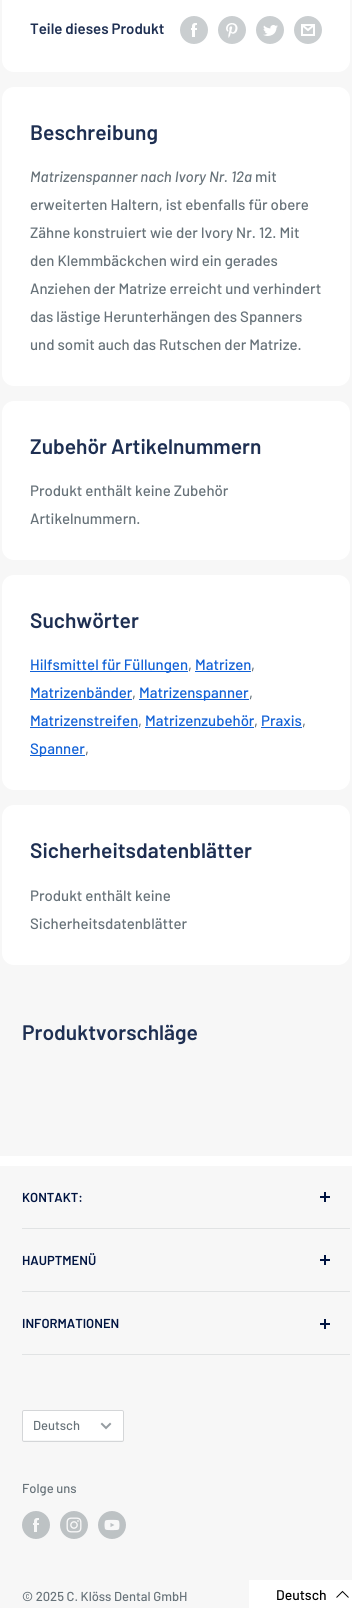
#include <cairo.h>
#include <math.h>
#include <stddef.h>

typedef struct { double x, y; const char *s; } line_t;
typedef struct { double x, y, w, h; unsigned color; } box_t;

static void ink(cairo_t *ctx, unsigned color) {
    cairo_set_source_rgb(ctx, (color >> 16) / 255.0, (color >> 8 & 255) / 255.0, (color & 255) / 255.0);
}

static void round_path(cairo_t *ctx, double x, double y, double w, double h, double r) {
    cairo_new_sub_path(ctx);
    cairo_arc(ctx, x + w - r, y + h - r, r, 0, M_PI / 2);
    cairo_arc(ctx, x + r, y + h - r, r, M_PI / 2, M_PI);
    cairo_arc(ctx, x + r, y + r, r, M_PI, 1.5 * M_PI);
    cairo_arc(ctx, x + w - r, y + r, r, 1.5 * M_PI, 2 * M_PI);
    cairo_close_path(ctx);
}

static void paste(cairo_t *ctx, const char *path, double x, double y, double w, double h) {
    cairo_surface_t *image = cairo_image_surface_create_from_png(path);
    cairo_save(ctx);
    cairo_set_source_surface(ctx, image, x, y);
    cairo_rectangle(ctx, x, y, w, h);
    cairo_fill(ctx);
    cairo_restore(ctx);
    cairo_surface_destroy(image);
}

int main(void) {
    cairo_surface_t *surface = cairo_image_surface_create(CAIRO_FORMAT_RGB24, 352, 1608);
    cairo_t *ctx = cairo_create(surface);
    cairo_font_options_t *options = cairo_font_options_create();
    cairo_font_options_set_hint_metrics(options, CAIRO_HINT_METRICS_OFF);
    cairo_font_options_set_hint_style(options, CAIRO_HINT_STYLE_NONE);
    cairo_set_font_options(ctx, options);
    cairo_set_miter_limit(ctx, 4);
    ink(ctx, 0xF7F7F7);
    cairo_paint(ctx);
    ink(ctx, 0xFFFFFF);
    round_path(ctx, 2, -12, 348, 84, 12);
    cairo_fill(ctx);
    cairo_select_font_face(ctx, "Barlow SemiBold", CAIRO_FONT_SLANT_NORMAL, CAIRO_FONT_WEIGHT_NORMAL);
    cairo_set_font_size(ctx, 15);
    ink(ctx, 0x1E2F52);
    cairo_move_to(ctx, 30, 34);
    cairo_show_text(ctx, "Teile dieses Produkt");
    paste(ctx, "media/1.png", 180, 16, 28, 28);
    paste(ctx, "media/2.png", 218, 16, 28, 28);
    paste(ctx, "media/3.png", 256, 16, 28, 28);
    paste(ctx, "media/4.png", 294, 16, 28, 28);
    ink(ctx, 0xFFFFFF);
    round_path(ctx, 2, 87, 348, 299, 12);
    cairo_fill(ctx);
    cairo_set_font_size(ctx, 21);
    ink(ctx, 0x1E2F52);
    cairo_move_to(ctx, 30, 140);
    cairo_show_text(ctx, "Beschreibung");
    cairo_select_font_face(ctx, "Barlow Medium", CAIRO_FONT_SLANT_ITALIC, CAIRO_FONT_WEIGHT_NORMAL);
    cairo_set_font_size(ctx, 15);
    ink(ctx, 0x677279);
    cairo_move_to(ctx, 30, 182);
    cairo_show_text(ctx, "Matrizenspanner nach Ivory Nr. 12a");
    cairo_select_font_face(ctx, "Barlow Medium", CAIRO_FONT_SLANT_NORMAL, CAIRO_FONT_WEIGHT_NORMAL);
    {
        static const line_t items[] = {
            {255, 182, "mit"},
            {30, 210, "erweiterten Haltern, ist ebenfalls für obere"},
            {30, 238, "Zähne konstruiert wie der Ivory Nr. 12. Mit"},
            {30, 266, "den Klemmbäckchen wird ein gerades"},
            {30, 294, "Anziehen der Matrize erreicht und verhindert"},
            {30, 322, "das lästige Herunterhängen des Spanners"},
            {30, 350, "und somit auch das Rutschen der Matrize."},
        };
        for (size_t i = 0; i < sizeof items / sizeof *items; i++) {
            cairo_move_to(ctx, items[i].x, items[i].y);
            cairo_show_text(ctx, items[i].s);
        }
    }
    ink(ctx, 0xFFFFFF);
    round_path(ctx, 2, 401, 348, 159, 12);
    cairo_fill(ctx);
    cairo_select_font_face(ctx, "Barlow SemiBold", CAIRO_FONT_SLANT_NORMAL, CAIRO_FONT_WEIGHT_NORMAL);
    cairo_set_font_size(ctx, 21);
    ink(ctx, 0x1E2F52);
    cairo_move_to(ctx, 30, 454);
    cairo_show_text(ctx, "Zubehör Artikelnummern");
    cairo_select_font_face(ctx, "Barlow Medium", CAIRO_FONT_SLANT_NORMAL, CAIRO_FONT_WEIGHT_NORMAL);
    cairo_set_font_size(ctx, 15);
    ink(ctx, 0x677279);
    cairo_move_to(ctx, 30, 496);
    cairo_show_text(ctx, "Produkt enthält keine Zubehör");
    cairo_move_to(ctx, 30, 524);
    cairo_show_text(ctx, "Artikelnummern.");
    ink(ctx, 0xFFFFFF);
    round_path(ctx, 2, 575, 348, 215, 12);
    cairo_fill(ctx);
    cairo_select_font_face(ctx, "Barlow SemiBold", CAIRO_FONT_SLANT_NORMAL, CAIRO_FONT_WEIGHT_NORMAL);
    cairo_set_font_size(ctx, 21);
    ink(ctx, 0x1E2F52);
    cairo_move_to(ctx, 30, 628);
    cairo_show_text(ctx, "Suchwörter");
    ink(ctx, 0x1161D7);
    cairo_rectangle(ctx, 30, 671, 158, 1);
    cairo_fill(ctx);
    cairo_select_font_face(ctx, "Barlow Medium", CAIRO_FONT_SLANT_NORMAL, CAIRO_FONT_WEIGHT_NORMAL);
    cairo_set_font_size(ctx, 15);
    cairo_move_to(ctx, 30, 670);
    cairo_show_text(ctx, "Hilfsmittel für Füllungen");
    ink(ctx, 0x677279);
    cairo_move_to(ctx, 188, 670);
    cairo_show_text(ctx, ",");
    ink(ctx, 0x1161D7);
    cairo_move_to(ctx, 195, 670);
    cairo_show_text(ctx, "Matrizen");
    cairo_rectangle(ctx, 195, 671, 56, 1);
    cairo_fill(ctx);
    ink(ctx, 0x677279);
    cairo_move_to(ctx, 251, 670);
    cairo_show_text(ctx, ",");
    ink(ctx, 0x1161D7);
    cairo_move_to(ctx, 30, 698);
    cairo_show_text(ctx, "Matrizenbänder");
    cairo_rectangle(ctx, 30, 699, 102, 1);
    cairo_fill(ctx);
    ink(ctx, 0x677279);
    cairo_move_to(ctx, 132, 698);
    cairo_show_text(ctx, ",");
    ink(ctx, 0x1161D7);
    cairo_rectangle(ctx, 139, 699, 110, 1);
    cairo_fill(ctx);
    cairo_move_to(ctx, 139, 698);
    cairo_show_text(ctx, "Matrizenspanner");
    ink(ctx, 0x677279);
    cairo_move_to(ctx, 249, 698);
    cairo_show_text(ctx, ",");
    ink(ctx, 0x1161D7);
    cairo_move_to(ctx, 30, 726);
    cairo_show_text(ctx, "Matrizenstreifen");
    cairo_rectangle(ctx, 30, 727, 108, 1);
    cairo_fill(ctx);
    ink(ctx, 0x677279);
    cairo_move_to(ctx, 138, 726);
    cairo_show_text(ctx, ",");
    ink(ctx, 0x1161D7);
    cairo_move_to(ctx, 145, 726);
    cairo_show_text(ctx, "Matrizenzubehör");
    cairo_rectangle(ctx, 145, 727, 109, 1);
    cairo_fill(ctx);
    ink(ctx, 0x677279);
    cairo_move_to(ctx, 254, 726);
    cairo_show_text(ctx, ",");
    ink(ctx, 0x1161D7);
    cairo_move_to(ctx, 261, 726);
    cairo_show_text(ctx, "Praxis");
    cairo_rectangle(ctx, 261, 727, 41, 1);
    cairo_fill(ctx);
    ink(ctx, 0x677279);
    cairo_move_to(ctx, 302, 726);
    cairo_show_text(ctx, ",");
    ink(ctx, 0x1161D7);
    cairo_rectangle(ctx, 30, 755, 55, 1);
    cairo_fill(ctx);
    cairo_move_to(ctx, 30, 754);
    cairo_show_text(ctx, "Spanner");
    ink(ctx, 0x677279);
    cairo_move_to(ctx, 85, 754);
    cairo_show_text(ctx, ",");
    ink(ctx, 0xFFFFFF);
    round_path(ctx, 2, 805, 348, 160, 12);
    cairo_fill(ctx);
    cairo_select_font_face(ctx, "Barlow SemiBold", CAIRO_FONT_SLANT_NORMAL, CAIRO_FONT_WEIGHT_NORMAL);
    cairo_set_font_size(ctx, 21);
    ink(ctx, 0x1E2F52);
    cairo_move_to(ctx, 30, 858);
    cairo_show_text(ctx, "Sicherheitsdatenblätter");
    cairo_select_font_face(ctx, "Barlow Medium", CAIRO_FONT_SLANT_NORMAL, CAIRO_FONT_WEIGHT_NORMAL);
    cairo_set_font_size(ctx, 15);
    ink(ctx, 0x677279);
    cairo_move_to(ctx, 30, 901);
    cairo_show_text(ctx, "Produkt enthält keine");
    cairo_move_to(ctx, 30, 929);
    cairo_show_text(ctx, "Sicherheitsdatenblätter");
    cairo_select_font_face(ctx, "Barlow SemiBold", CAIRO_FONT_SLANT_NORMAL, CAIRO_FONT_WEIGHT_NORMAL);
    cairo_set_font_size(ctx, 21);
    ink(ctx, 0x1E2F52);
    cairo_move_to(ctx, 22, 1040);
    cairo_show_text(ctx, "Produktvorschläge");
    ink(ctx, 0xFFFFFF);
    cairo_rectangle(ctx, 0, 1156, 352, 10);
    cairo_fill(ctx);
    ink(ctx, 0xE1E3E4);
    cairo_rectangle(ctx, 22, 1228, 328, 1);
    cairo_fill(ctx);
    cairo_set_font_size(ctx, 13);
    ink(ctx, 0x001441);
    cairo_move_to(ctx, 22, 1202);
    cairo_show_text(ctx, "KONTAKT:");
    {
        static const box_t items[] = {
            {324, 1192, 2, 10, 0x001441},
            {320, 1196, 10, 2, 0x001441},
            {22, 1291, 328, 1, 0xE1E3E4},
        };
        for (size_t i = 0; i < sizeof items / sizeof *items; i++) {
            ink(ctx, items[i].color);
            cairo_rectangle(ctx, items[i].x, items[i].y, items[i].w, items[i].h);
            cairo_fill(ctx);
        }
    }
    ink(ctx, 0x001441);
    cairo_move_to(ctx, 22, 1265);
    cairo_show_text(ctx, "HAUPTMENÜ");
    {
        static const box_t items[] = {
            {324, 1255, 2, 10, 0x001441},
            {320, 1259, 10, 2, 0x001441},
            {22, 1354, 328, 1, 0xE1E3E4},
        };
        for (size_t i = 0; i < sizeof items / sizeof *items; i++) {
            ink(ctx, items[i].color);
            cairo_rectangle(ctx, items[i].x, items[i].y, items[i].w, items[i].h);
            cairo_fill(ctx);
        }
    }
    ink(ctx, 0x001441);
    cairo_move_to(ctx, 22, 1328);
    cairo_show_text(ctx, "INFORMATIONEN");
    cairo_rectangle(ctx, 324, 1319, 2, 10);
    cairo_fill(ctx);
    cairo_rectangle(ctx, 320, 1323, 10, 2);
    cairo_fill(ctx);
    ink(ctx, 0xFFFFFF);
    round_path(ctx, 22, 1410, 102, 32, 2);
    cairo_fill(ctx);
    ink(ctx, 0xF6F7F7);
    cairo_new_path(ctx);
    cairo_move_to(ctx, 23, 1439);
    cairo_curve_to(ctx, 23, 1440, 23, 1441, 24, 1441);
    cairo_line_to(ctx, 122, 1441);
    cairo_curve_to(ctx, 123, 1441, 123, 1440, 123, 1439);
    cairo_curve_to(ctx, 123, 1440, 123, 1440, 122, 1440);
    cairo_line_to(ctx, 24, 1440);
    cairo_curve_to(ctx, 23, 1440, 23, 1440, 23, 1439);
    cairo_close_path(ctx);
    cairo_fill(ctx);
    round_path(ctx, 22.5, 1410.5, 101, 31, 1.5);
    ink(ctx, 0xD4D6D8);
    cairo_set_line_width(ctx, 1);
    cairo_stroke(ctx);
    cairo_select_font_face(ctx, "Barlow Medium", CAIRO_FONT_SLANT_NORMAL, CAIRO_FONT_WEIGHT_NORMAL);
    ink(ctx, 0x677279);
    cairo_move_to(ctx, 33, 1430);
    cairo_show_text(ctx, "Deutsch");
    cairo_new_path(ctx);
    cairo_move_to(ctx, 110, 1424);
    cairo_line_to(ctx, 106, 1428);
    cairo_line_to(ctx, 102, 1424);
    ink(ctx, 0x959CA1);
    cairo_set_line_width(ctx, 2);
    cairo_set_line_cap(ctx, CAIRO_LINE_CAP_SQUARE);
    cairo_stroke(ctx);
    ink(ctx, 0x677279);
    cairo_move_to(ctx, 22, 1493);
    cairo_show_text(ctx, "Folge uns");
    paste(ctx, "media/5.png", 22, 1511, 28, 28);
    paste(ctx, "media/6.png", 60, 1511, 28, 28);
    paste(ctx, "media/7.png", 98, 1511, 28, 28);
    cairo_move_to(ctx, 22, 1601);
    cairo_show_text(ctx, "© 2025 C. Klöss Dental GmbH");
    ink(ctx, 0xFFFFFF);
    cairo_rectangle(ctx, 249, 1580, 103, 28);
    cairo_fill(ctx);
    cairo_set_font_size(ctx, 14);
    ink(ctx, 0x000000);
    cairo_move_to(ctx, 276, 1600);
    cairo_show_text(ctx, "Deutsch");
    cairo_new_path(ctx);
    cairo_move_to(ctx, 348.5, 1597.5);
    cairo_line_to(ctx, 342.5, 1591.5);
    cairo_line_to(ctx, 336.5, 1597.5);
    cairo_set_line_width(ctx, 1);
    cairo_set_line_cap(ctx, CAIRO_LINE_CAP_BUTT);
    cairo_stroke(ctx);
    cairo_surface_write_to_png(surface, "image.png");
    cairo_font_options_destroy(options);
    cairo_destroy(ctx);
    cairo_surface_destroy(surface);
    return 0;
}
